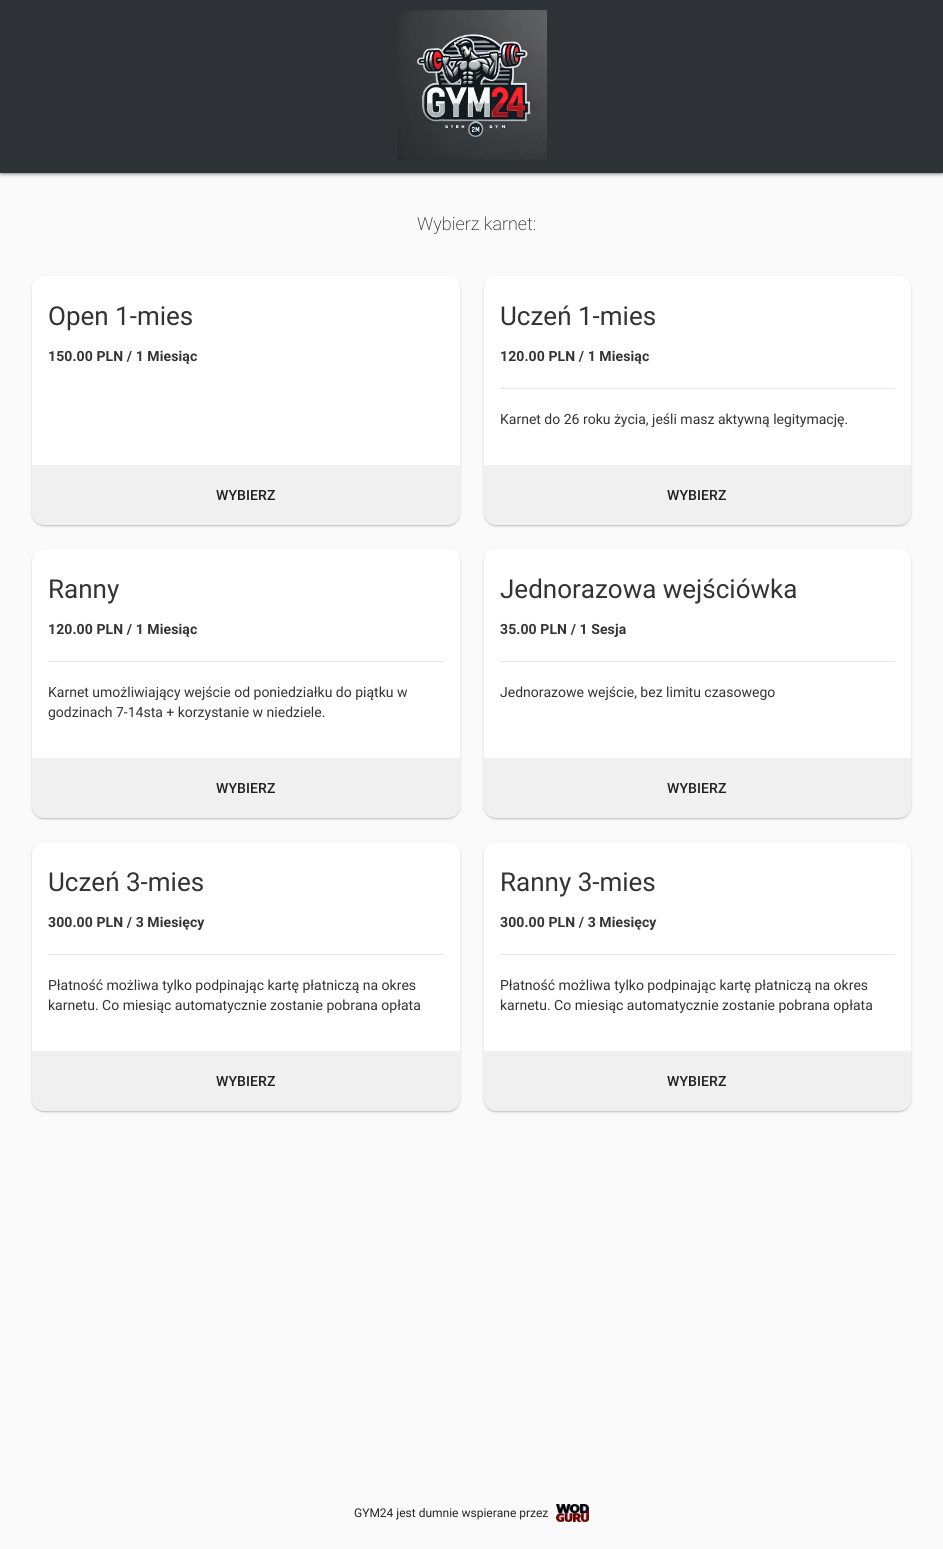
#include <cairo.h>
#include <math.h>
#include <stddef.h>


static void ink(cairo_t *ctx, unsigned color) {
    cairo_set_source_rgb(ctx, (color >> 16) / 255.0, (color >> 8 & 255) / 255.0, (color & 255) / 255.0);
}

static void write_spaced(cairo_t *ctx, double x, double y, const char *s, double letter, double word) {
    cairo_move_to(ctx, x, y);
    while (*s) {
        char ch[5] = {0};
        int n = 0;
        do ch[n++] = *s++; while ((*s & 0xC0) == 0x80);
        cairo_show_text(ctx, ch);
        cairo_rel_move_to(ctx, letter + word * (*ch == ' '), 0);
    }
}

static void round_path(cairo_t *ctx, double x, double y, double w, double h, double r) {
    cairo_new_sub_path(ctx);
    cairo_arc(ctx, x + w - r, y + h - r, r, 0, M_PI / 2);
    cairo_arc(ctx, x + r, y + h - r, r, M_PI / 2, M_PI);
    cairo_arc(ctx, x + r, y + r, r, M_PI, 1.5 * M_PI);
    cairo_arc(ctx, x + w - r, y + r, r, 1.5 * M_PI, 2 * M_PI);
    cairo_close_path(ctx);
}

static void blur_box(cairo_t *ctx, double x, double y, double w, double h, double r, double blur, double alpha) {
    cairo_push_group_with_content(ctx, CAIRO_CONTENT_ALPHA);
    cairo_set_operator(ctx, CAIRO_OPERATOR_SOURCE);
    for (int i = 15; i >= -15 && fmin(w, h) + blur * i / 3 > 0; i -= 2) {
        double e = blur * i / 6;
        cairo_set_source_rgba(ctx, 0, 0, 0, alpha * erfc((i - 1) / 8.5) / 2);
        round_path(ctx, x - e, y - e, w + 2 * e, h + 2 * e, fmax(0, fmin(r + e + blur * .6, fmin(w, h) / 2 + e)));
        cairo_fill(ctx);
    }
    cairo_pattern_t *soft = cairo_pop_group(ctx);
    cairo_mask(ctx, soft);
    cairo_pattern_destroy(soft);
}

static void paste(cairo_t *ctx, const char *path, double x, double y, double w, double h) {
    cairo_surface_t *image = cairo_image_surface_create_from_png(path);
    cairo_save(ctx);
    cairo_set_source_surface(ctx, image, x, y);
    cairo_rectangle(ctx, x, y, w, h);
    cairo_fill(ctx);
    cairo_restore(ctx);
    cairo_surface_destroy(image);
}

int main(void) {
    cairo_surface_t *surface = cairo_image_surface_create(CAIRO_FORMAT_RGB24, 943, 1549);
    cairo_t *ctx = cairo_create(surface);
    cairo_font_options_t *options = cairo_font_options_create();
    cairo_font_options_set_hint_metrics(options, CAIRO_HINT_METRICS_OFF);
    cairo_font_options_set_hint_style(options, CAIRO_HINT_STYLE_NONE);
    cairo_set_font_options(ctx, options);
    cairo_set_miter_limit(ctx, 4);
    ink(ctx, 0xFAFAFA);
    cairo_paint(ctx);
    ink(ctx, 0x000000);
    blur_box(ctx, 2, 5, 939, 169, 0, 0.5, 0.12);
    blur_box(ctx, 0, 2, 943, 173, 0, 1, 0.14);
    blur_box(ctx, 0, 1, 943, 173, 0, 2.5, 0.2);
    ink(ctx, 0x2E3135);
    cairo_rectangle(ctx, 0, 0, 943, 173);
    cairo_fill(ctx);
    paste(ctx, "media/1.png", 397, 10, 150, 150);
    cairo_select_font_face(ctx, "Roboto ExtraLight", CAIRO_FONT_SLANT_NORMAL, CAIRO_FONT_WEIGHT_NORMAL);
    cairo_set_font_size(ctx, 18);
    ink(ctx, 0x262626);
    cairo_move_to(ctx, 417, 230);
    cairo_show_text(ctx, "Wybierz karnet:");
    ink(ctx, 0x646464);
    blur_box(ctx, 33, 279, 426, 247, 11, 0.5, 0.12);
    blur_box(ctx, 32, 277, 428, 249, 12, 0.5, 0.14);
    blur_box(ctx, 32, 277, 428, 249, 12, 1.5, 0.2);
    ink(ctx, 0xFFFFFF);
    round_path(ctx, 32, 276, 428, 249, 12);
    cairo_fill(ctx);
    cairo_select_font_face(ctx, "Roboto", CAIRO_FONT_SLANT_NORMAL, CAIRO_FONT_WEIGHT_NORMAL);
    cairo_set_font_size(ctx, 26);
    ink(ctx, 0x333333);
    cairo_move_to(ctx, 48, 325);
    cairo_show_text(ctx, "Open 1-mies");
    cairo_select_font_face(ctx, "Roboto", CAIRO_FONT_SLANT_NORMAL, CAIRO_FONT_WEIGHT_BOLD);
    cairo_set_font_size(ctx, 14);
    write_spaced(ctx, 48, 361, "150.00 PLN / 1 Miesiąc", 0.1, 0);
    cairo_set_source_rgba(ctx, 0.392, 0.392, 0.392, 0.1);
    cairo_new_path(ctx);
    cairo_move_to(ctx, 32, 465);
    cairo_line_to(ctx, 460, 465);
    cairo_line_to(ctx, 460, 513);
    cairo_curve_to(ctx, 460, 519.5, 454.5, 525, 448, 525);
    cairo_line_to(ctx, 44, 525);
    cairo_curve_to(ctx, 37.5, 525, 32, 519.5, 32, 513);
    cairo_close_path(ctx);
    cairo_fill(ctx);
    cairo_select_font_face(ctx, "Roboto Medium", CAIRO_FONT_SLANT_NORMAL, CAIRO_FONT_WEIGHT_NORMAL);
    ink(ctx, 0x1F1F1F);
    write_spaced(ctx, 216, 500, "WYBIERZ", 0.1, 0);
    ink(ctx, 0x646464);
    blur_box(ctx, 485, 279, 425, 247, 11, 0.5, 0.12);
    blur_box(ctx, 484, 277, 427, 249, 12, 0.5, 0.14);
    blur_box(ctx, 484, 277, 427, 249, 12, 1.5, 0.2);
    ink(ctx, 0xFFFFFF);
    round_path(ctx, 484, 276, 427, 249, 12);
    cairo_fill(ctx);
    cairo_select_font_face(ctx, "Roboto", CAIRO_FONT_SLANT_NORMAL, CAIRO_FONT_WEIGHT_NORMAL);
    cairo_set_font_size(ctx, 26);
    ink(ctx, 0x333333);
    cairo_move_to(ctx, 500, 325);
    cairo_show_text(ctx, "Uczeń 1-mies");
    cairo_select_font_face(ctx, "Roboto", CAIRO_FONT_SLANT_NORMAL, CAIRO_FONT_WEIGHT_BOLD);
    cairo_set_font_size(ctx, 14);
    write_spaced(ctx, 500, 361, "120.00 PLN / 1 Miesiąc", 0.1, 0);
    ink(ctx, 0xE6E6E6);
    cairo_rectangle(ctx, 500, 388, 395, 1);
    cairo_fill(ctx);
    cairo_select_font_face(ctx, "Roboto", CAIRO_FONT_SLANT_NORMAL, CAIRO_FONT_WEIGHT_NORMAL);
    ink(ctx, 0x333333);
    cairo_move_to(ctx, 500, 424);
    cairo_show_text(ctx, "Karnet do 26 roku życia, jeśli masz aktywną legitymację.");
    cairo_set_source_rgba(ctx, 0.392, 0.392, 0.392, 0.1);
    cairo_new_path(ctx);
    cairo_move_to(ctx, 484, 465);
    cairo_line_to(ctx, 911, 465);
    cairo_line_to(ctx, 911, 513);
    cairo_curve_to(ctx, 911, 519.5, 905.5, 525, 899, 525);
    cairo_line_to(ctx, 496, 525);
    cairo_curve_to(ctx, 489.5, 525, 484, 519.5, 484, 513);
    cairo_close_path(ctx);
    cairo_fill(ctx);
    cairo_select_font_face(ctx, "Roboto Medium", CAIRO_FONT_SLANT_NORMAL, CAIRO_FONT_WEIGHT_NORMAL);
    ink(ctx, 0x1F1F1F);
    write_spaced(ctx, 667, 500, "WYBIERZ", 0.1, 0);
    ink(ctx, 0x646464);
    blur_box(ctx, 33, 552, 426, 267, 11, 0.5, 0.12);
    blur_box(ctx, 32, 550, 428, 269, 12, 0.5, 0.14);
    blur_box(ctx, 32, 550, 428, 269, 12, 1.5, 0.2);
    ink(ctx, 0xFFFFFF);
    round_path(ctx, 32, 549, 428, 269, 12);
    cairo_fill(ctx);
    cairo_select_font_face(ctx, "Roboto", CAIRO_FONT_SLANT_NORMAL, CAIRO_FONT_WEIGHT_NORMAL);
    cairo_set_font_size(ctx, 26);
    ink(ctx, 0x333333);
    cairo_move_to(ctx, 48, 598);
    cairo_show_text(ctx, "Ranny");
    cairo_select_font_face(ctx, "Roboto", CAIRO_FONT_SLANT_NORMAL, CAIRO_FONT_WEIGHT_BOLD);
    cairo_set_font_size(ctx, 14);
    write_spaced(ctx, 48, 634, "120.00 PLN / 1 Miesiąc", 0.1, 0);
    ink(ctx, 0xE6E6E6);
    cairo_rectangle(ctx, 48, 661, 396, 1);
    cairo_fill(ctx);
    cairo_select_font_face(ctx, "Roboto", CAIRO_FONT_SLANT_NORMAL, CAIRO_FONT_WEIGHT_NORMAL);
    ink(ctx, 0x333333);
    cairo_move_to(ctx, 48, 697);
    cairo_show_text(ctx, "Karnet umożliwiający wejście od poniedziałku do piątku w");
    cairo_move_to(ctx, 48, 717);
    cairo_show_text(ctx, "godzinach 7-14sta + korzystanie w niedziele.");
    cairo_set_source_rgba(ctx, 0.392, 0.392, 0.392, 0.1);
    cairo_new_path(ctx);
    cairo_move_to(ctx, 32, 758);
    cairo_line_to(ctx, 460, 758);
    cairo_line_to(ctx, 460, 806);
    cairo_curve_to(ctx, 460, 812.5, 454.5, 818, 448, 818);
    cairo_line_to(ctx, 44, 818);
    cairo_curve_to(ctx, 37.5, 818, 32, 812.5, 32, 806);
    cairo_close_path(ctx);
    cairo_fill(ctx);
    cairo_select_font_face(ctx, "Roboto Medium", CAIRO_FONT_SLANT_NORMAL, CAIRO_FONT_WEIGHT_NORMAL);
    ink(ctx, 0x1F1F1F);
    write_spaced(ctx, 216, 793, "WYBIERZ", 0.1, 0);
    ink(ctx, 0x646464);
    blur_box(ctx, 485, 552, 425, 267, 11, 0.5, 0.12);
    blur_box(ctx, 484, 550, 427, 269, 12, 0.5, 0.14);
    blur_box(ctx, 484, 550, 427, 269, 12, 1.5, 0.2);
    ink(ctx, 0xFFFFFF);
    round_path(ctx, 484, 549, 427, 269, 12);
    cairo_fill(ctx);
    cairo_select_font_face(ctx, "Roboto", CAIRO_FONT_SLANT_NORMAL, CAIRO_FONT_WEIGHT_NORMAL);
    cairo_set_font_size(ctx, 26);
    ink(ctx, 0x333333);
    cairo_move_to(ctx, 500, 598);
    cairo_show_text(ctx, "Jednorazowa wejściówka");
    cairo_select_font_face(ctx, "Roboto", CAIRO_FONT_SLANT_NORMAL, CAIRO_FONT_WEIGHT_BOLD);
    cairo_set_font_size(ctx, 14);
    write_spaced(ctx, 500, 634, "35.00 PLN / 1 Sesja", 0.1, 0);
    ink(ctx, 0xE6E6E6);
    cairo_rectangle(ctx, 500, 661, 395, 1);
    cairo_fill(ctx);
    cairo_select_font_face(ctx, "Roboto", CAIRO_FONT_SLANT_NORMAL, CAIRO_FONT_WEIGHT_NORMAL);
    ink(ctx, 0x333333);
    cairo_move_to(ctx, 500, 697);
    cairo_show_text(ctx, "Jednorazowe wejście, bez limitu czasowego");
    cairo_set_source_rgba(ctx, 0.392, 0.392, 0.392, 0.1);
    cairo_new_path(ctx);
    cairo_move_to(ctx, 484, 758);
    cairo_line_to(ctx, 911, 758);
    cairo_line_to(ctx, 911, 806);
    cairo_curve_to(ctx, 911, 812.5, 905.5, 818, 899, 818);
    cairo_line_to(ctx, 496, 818);
    cairo_curve_to(ctx, 489.5, 818, 484, 812.5, 484, 806);
    cairo_close_path(ctx);
    cairo_fill(ctx);
    cairo_select_font_face(ctx, "Roboto Medium", CAIRO_FONT_SLANT_NORMAL, CAIRO_FONT_WEIGHT_NORMAL);
    ink(ctx, 0x1F1F1F);
    write_spaced(ctx, 667, 793, "WYBIERZ", 0.1, 0);
    ink(ctx, 0x646464);
    blur_box(ctx, 33, 845, 426, 267, 11, 0.5, 0.12);
    blur_box(ctx, 32, 843, 428, 269, 12, 0.5, 0.14);
    blur_box(ctx, 32, 843, 428, 269, 12, 1.5, 0.2);
    ink(ctx, 0xFFFFFF);
    round_path(ctx, 32, 842, 428, 269, 12);
    cairo_fill(ctx);
    cairo_select_font_face(ctx, "Roboto", CAIRO_FONT_SLANT_NORMAL, CAIRO_FONT_WEIGHT_NORMAL);
    cairo_set_font_size(ctx, 26);
    ink(ctx, 0x333333);
    cairo_move_to(ctx, 48, 891);
    cairo_show_text(ctx, "Uczeń 3-mies");
    cairo_select_font_face(ctx, "Roboto", CAIRO_FONT_SLANT_NORMAL, CAIRO_FONT_WEIGHT_BOLD);
    cairo_set_font_size(ctx, 14);
    write_spaced(ctx, 48, 927, "300.00 PLN / 3 Miesięcy", 0.1, 0);
    ink(ctx, 0xE6E6E6);
    cairo_rectangle(ctx, 48, 954, 396, 1);
    cairo_fill(ctx);
    cairo_select_font_face(ctx, "Roboto", CAIRO_FONT_SLANT_NORMAL, CAIRO_FONT_WEIGHT_NORMAL);
    ink(ctx, 0x333333);
    cairo_move_to(ctx, 48, 990);
    cairo_show_text(ctx, "Płatność możliwa tylko podpinając kartę płatniczą na okres");
    cairo_move_to(ctx, 48, 1010);
    cairo_show_text(ctx, "karnetu. Co miesiąc automatycznie zostanie pobrana opłata");
    cairo_set_source_rgba(ctx, 0.392, 0.392, 0.392, 0.1);
    cairo_new_path(ctx);
    cairo_move_to(ctx, 32, 1051);
    cairo_line_to(ctx, 460, 1051);
    cairo_line_to(ctx, 460, 1099);
    cairo_curve_to(ctx, 460, 1105.5, 454.5, 1111, 448, 1111);
    cairo_line_to(ctx, 44, 1111);
    cairo_curve_to(ctx, 37.5, 1111, 32, 1105.5, 32, 1099);
    cairo_close_path(ctx);
    cairo_fill(ctx);
    cairo_select_font_face(ctx, "Roboto Medium", CAIRO_FONT_SLANT_NORMAL, CAIRO_FONT_WEIGHT_NORMAL);
    ink(ctx, 0x1F1F1F);
    write_spaced(ctx, 216, 1086, "WYBIERZ", 0.1, 0);
    ink(ctx, 0x646464);
    blur_box(ctx, 485, 845, 425, 267, 11, 0.5, 0.12);
    blur_box(ctx, 484, 843, 427, 269, 12, 0.5, 0.14);
    blur_box(ctx, 484, 843, 427, 269, 12, 1.5, 0.2);
    ink(ctx, 0xFFFFFF);
    round_path(ctx, 484, 842, 427, 269, 12);
    cairo_fill(ctx);
    cairo_select_font_face(ctx, "Roboto", CAIRO_FONT_SLANT_NORMAL, CAIRO_FONT_WEIGHT_NORMAL);
    cairo_set_font_size(ctx, 26);
    ink(ctx, 0x333333);
    cairo_move_to(ctx, 500, 891);
    cairo_show_text(ctx, "Ranny 3-mies");
    cairo_select_font_face(ctx, "Roboto", CAIRO_FONT_SLANT_NORMAL, CAIRO_FONT_WEIGHT_BOLD);
    cairo_set_font_size(ctx, 14);
    write_spaced(ctx, 500, 927, "300.00 PLN / 3 Miesięcy", 0.1, 0);
    ink(ctx, 0xE6E6E6);
    cairo_rectangle(ctx, 500, 954, 395, 1);
    cairo_fill(ctx);
    cairo_select_font_face(ctx, "Roboto", CAIRO_FONT_SLANT_NORMAL, CAIRO_FONT_WEIGHT_NORMAL);
    ink(ctx, 0x333333);
    cairo_move_to(ctx, 500, 990);
    cairo_show_text(ctx, "Płatność możliwa tylko podpinając kartę płatniczą na okres");
    cairo_move_to(ctx, 500, 1010);
    cairo_show_text(ctx, "karnetu. Co miesiąc automatycznie zostanie pobrana opłata");
    cairo_set_source_rgba(ctx, 0.392, 0.392, 0.392, 0.1);
    cairo_new_path(ctx);
    cairo_move_to(ctx, 484, 1051);
    cairo_line_to(ctx, 911, 1051);
    cairo_line_to(ctx, 911, 1099);
    cairo_curve_to(ctx, 911, 1105.5, 905.5, 1111, 899, 1111);
    cairo_line_to(ctx, 496, 1111);
    cairo_curve_to(ctx, 489.5, 1111, 484, 1105.5, 484, 1099);
    cairo_close_path(ctx);
    cairo_fill(ctx);
    cairo_select_font_face(ctx, "Roboto Medium", CAIRO_FONT_SLANT_NORMAL, CAIRO_FONT_WEIGHT_NORMAL);
    ink(ctx, 0x1F1F1F);
    write_spaced(ctx, 667, 1086, "WYBIERZ", 0.1, 0);
    cairo_select_font_face(ctx, "Roboto", CAIRO_FONT_SLANT_NORMAL, CAIRO_FONT_WEIGHT_NORMAL);
    cairo_set_font_size(ctx, 12);
    ink(ctx, 0x262626);
    cairo_move_to(ctx, 354, 1517);
    cairo_show_text(ctx, "GYM24 jest dumnie wspierane przez");
    paste(ctx, "media/2.png", 556, 1504, 33, 18);
    cairo_surface_write_to_png(surface, "image.png");
    cairo_font_options_destroy(options);
    cairo_destroy(ctx);
    cairo_surface_destroy(surface);
    return 0;
}
